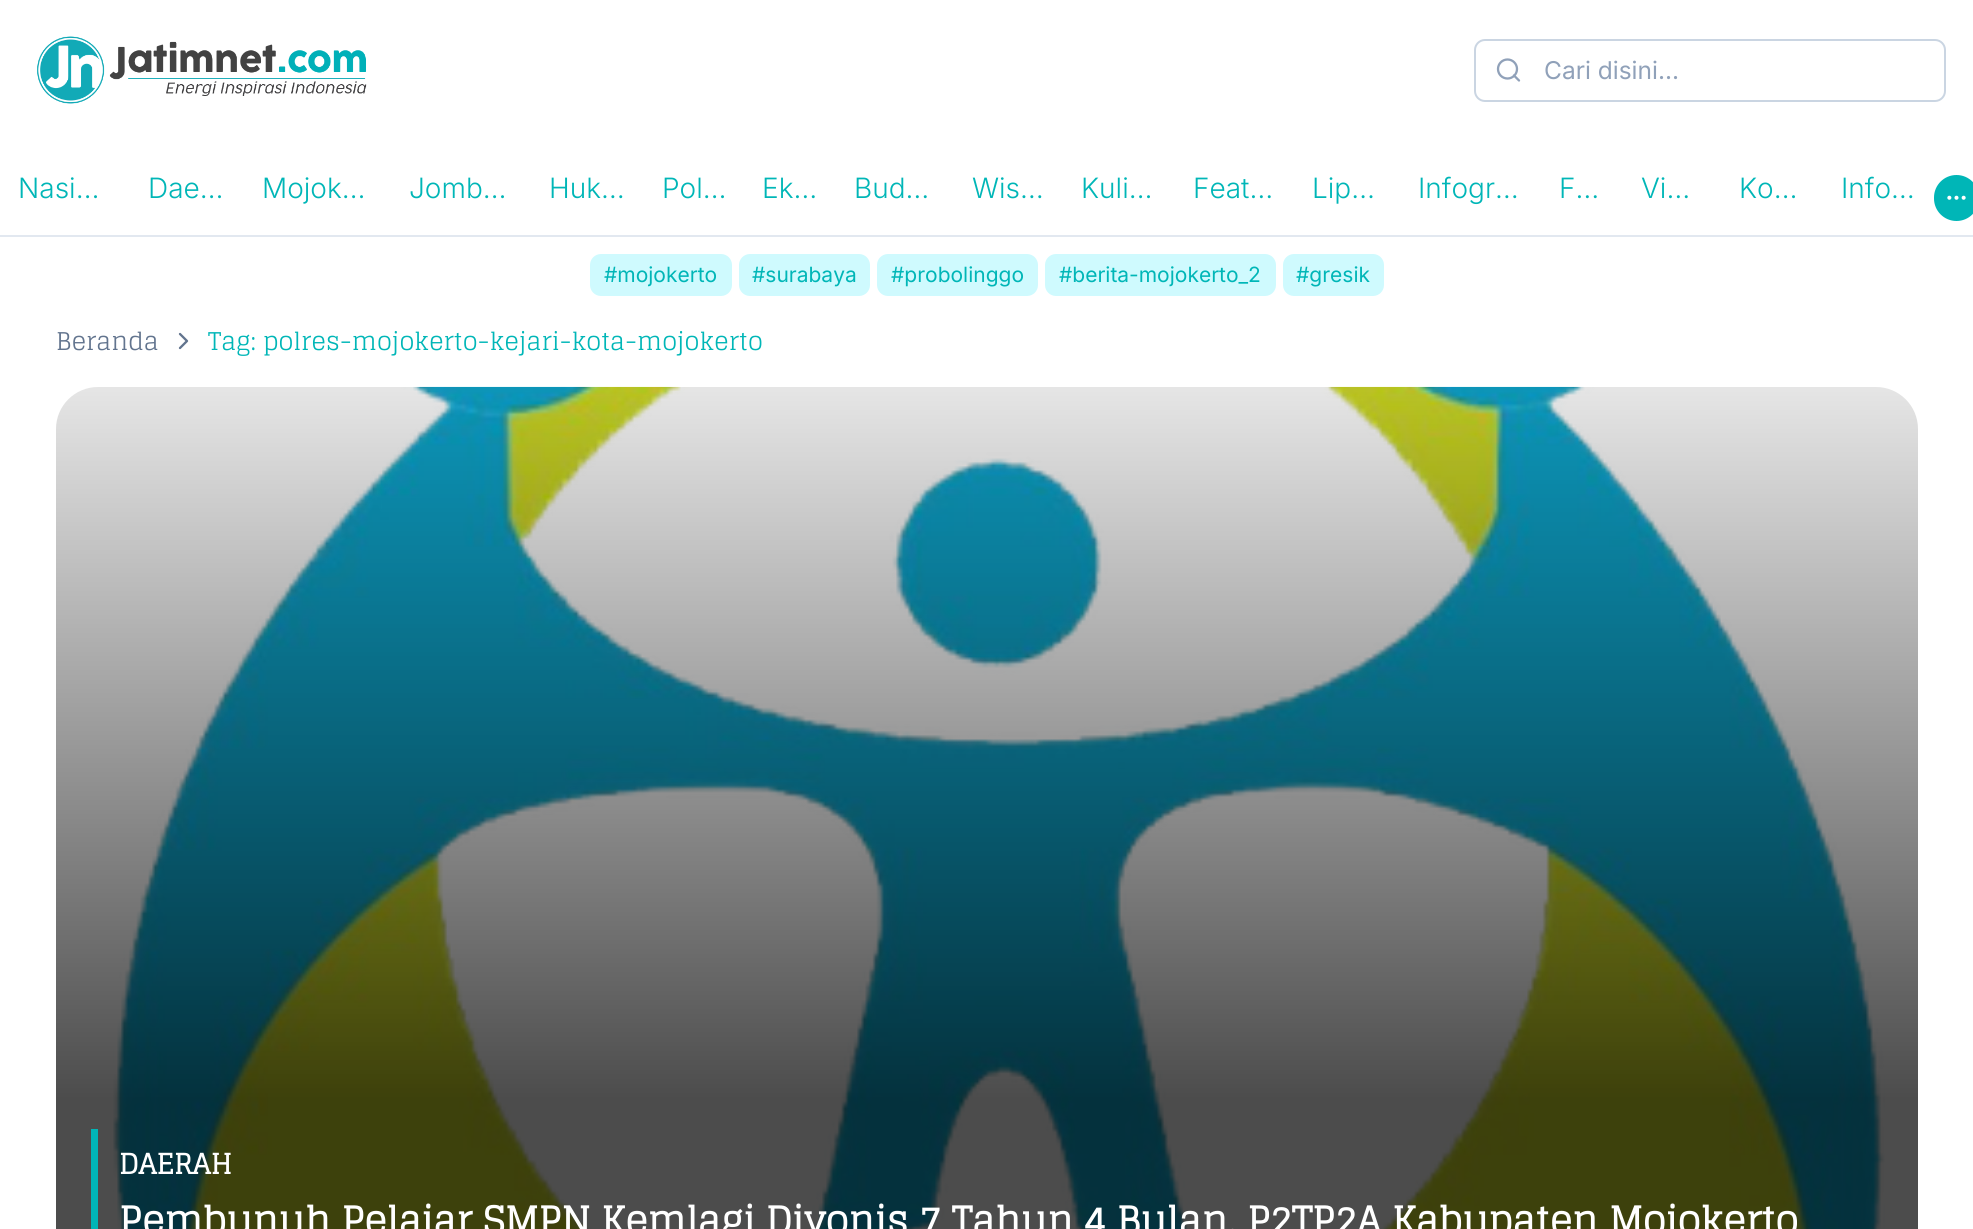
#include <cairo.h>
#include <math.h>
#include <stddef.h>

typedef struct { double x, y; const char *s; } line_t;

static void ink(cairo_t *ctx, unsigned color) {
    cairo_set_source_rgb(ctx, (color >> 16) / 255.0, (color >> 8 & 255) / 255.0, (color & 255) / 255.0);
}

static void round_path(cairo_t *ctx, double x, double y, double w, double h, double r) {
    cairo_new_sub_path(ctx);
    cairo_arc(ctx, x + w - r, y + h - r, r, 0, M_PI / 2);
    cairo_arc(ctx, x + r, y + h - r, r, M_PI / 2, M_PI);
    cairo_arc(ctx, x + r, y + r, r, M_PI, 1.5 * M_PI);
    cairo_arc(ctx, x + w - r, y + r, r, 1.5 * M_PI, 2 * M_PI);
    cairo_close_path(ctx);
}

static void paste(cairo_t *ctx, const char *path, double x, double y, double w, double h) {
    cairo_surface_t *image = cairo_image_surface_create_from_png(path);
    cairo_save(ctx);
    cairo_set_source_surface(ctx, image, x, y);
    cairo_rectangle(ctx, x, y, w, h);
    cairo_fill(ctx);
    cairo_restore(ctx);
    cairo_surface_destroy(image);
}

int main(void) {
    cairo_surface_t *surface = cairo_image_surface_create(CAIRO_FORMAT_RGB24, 1973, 1229);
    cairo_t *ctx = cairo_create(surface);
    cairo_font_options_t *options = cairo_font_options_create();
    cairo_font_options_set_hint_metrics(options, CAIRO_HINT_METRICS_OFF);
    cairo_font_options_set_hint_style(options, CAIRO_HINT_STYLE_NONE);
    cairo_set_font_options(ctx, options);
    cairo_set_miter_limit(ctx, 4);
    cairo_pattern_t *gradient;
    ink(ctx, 0xFFFFFF);
    cairo_paint(ctx);
    paste(ctx, "media/1.png", 37, 36, 330, 68);
    round_path(ctx, 1475, 40, 470, 61, 10);
    ink(ctx, 0xCAD5E2);
    cairo_stroke(ctx);
    cairo_new_path(ctx);
    cairo_move_to(ctx, 1519, 80.5);
    cairo_line_to(ctx, 1514, 75.5);
    ink(ctx, 0x90A1B9);
    cairo_set_line_width(ctx, 2.3);
    cairo_set_line_cap(ctx, CAIRO_LINE_CAP_ROUND);
    cairo_set_line_join(ctx, CAIRO_LINE_JOIN_ROUND);
    cairo_stroke(ctx);
    cairo_arc(ctx, 1507.5, 69, 9.5, 0, 2 * M_PI);
    cairo_set_line_cap(ctx, CAIRO_LINE_CAP_BUTT);
    cairo_set_line_join(ctx, CAIRO_LINE_JOIN_MITER);
    cairo_stroke(ctx);
    cairo_select_font_face(ctx, "Inter", CAIRO_FONT_SLANT_NORMAL, CAIRO_FONT_WEIGHT_NORMAL);
    cairo_set_font_size(ctx, 24.5);
    cairo_move_to(ctx, 1544, 79);
    cairo_show_text(ctx, "Cari disini...");
    ink(ctx, 0xE2E8F0);
    cairo_rectangle(ctx, 0, 235, 1973, 2);
    cairo_fill(ctx);
    cairo_select_font_face(ctx, "Inter Light", CAIRO_FONT_SLANT_NORMAL, CAIRO_FONT_WEIGHT_NORMAL);
    cairo_set_font_size(ctx, 28);
    ink(ctx, 0x00B6B7);
    {
        static const line_t items[] = {
            {18, 198, "Nasi…"},
            {148, 198, "Dae…"},
            {262, 198, "Mojok…"},
            {409, 198, "Jomb…"},
            {549, 198, "Huk…"},
            {662, 198, "Pol…"},
            {762, 198, "Ek…"},
            {854, 198, "Bud…"},
            {972, 198, "Wis…"},
            {1081, 198, "Kuli…"},
            {1193, 198, "Feat…"},
            {1312, 198, "Lip…"},
            {1418, 198, "Infogr…"},
            {1559, 198, "F…"},
            {1641, 198, "Vi…"},
            {1739, 198, "Ko…"},
            {1841, 198, "Info…"},
        };
        for (size_t i = 0; i < sizeof items / sizeof *items; i++) {
            cairo_move_to(ctx, items[i].x, items[i].y);
            cairo_show_text(ctx, items[i].s);
        }
    }
    round_path(ctx, 1934, 175, 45, 46, 22.5);
    cairo_fill(ctx);
    paste(ctx, "media/2.png", 1947, 195, 19, 5);
    ink(ctx, 0xCFFAFE);
    round_path(ctx, 590, 254, 142, 42, 11);
    cairo_fill(ctx);
    cairo_select_font_face(ctx, "Inter", CAIRO_FONT_SLANT_NORMAL, CAIRO_FONT_WEIGHT_NORMAL);
    cairo_set_font_size(ctx, 21);
    ink(ctx, 0x00B6B7);
    cairo_move_to(ctx, 604, 282);
    cairo_show_text(ctx, "#mojokerto");
    ink(ctx, 0xCFFAFE);
    round_path(ctx, 739, 254, 131, 42, 11);
    cairo_fill(ctx);
    ink(ctx, 0x00B6B7);
    cairo_move_to(ctx, 752, 282);
    cairo_show_text(ctx, "#surabaya");
    ink(ctx, 0xCFFAFE);
    round_path(ctx, 877, 254, 161, 42, 11);
    cairo_fill(ctx);
    ink(ctx, 0x00B6B7);
    cairo_move_to(ctx, 891, 282);
    cairo_show_text(ctx, "#probolinggo");
    ink(ctx, 0xCFFAFE);
    round_path(ctx, 1045, 254, 231, 42, 11);
    cairo_fill(ctx);
    ink(ctx, 0x00B6B7);
    cairo_move_to(ctx, 1059, 282);
    cairo_show_text(ctx, "#berita-mojokerto_2");
    ink(ctx, 0xCFFAFE);
    round_path(ctx, 1283, 254, 101, 42, 11);
    cairo_fill(ctx);
    ink(ctx, 0x00B6B7);
    cairo_move_to(ctx, 1296, 282);
    cairo_show_text(ctx, "#gresik");
    cairo_select_font_face(ctx, "Glegoo", CAIRO_FONT_SLANT_NORMAL, CAIRO_FONT_WEIGHT_NORMAL);
    cairo_set_font_size(ctx, 24.5);
    ink(ctx, 0x62748E);
    cairo_move_to(ctx, 56, 350);
    cairo_show_text(ctx, "Beranda");
    cairo_new_path(ctx);
    cairo_move_to(ctx, 180, 348);
    cairo_line_to(ctx, 187, 341);
    cairo_line_to(ctx, 180, 334);
    cairo_set_line_cap(ctx, CAIRO_LINE_CAP_ROUND);
    cairo_set_line_join(ctx, CAIRO_LINE_JOIN_ROUND);
    cairo_stroke(ctx);
    ink(ctx, 0x00B6B7);
    cairo_move_to(ctx, 208, 350);
    cairo_show_text(ctx, "Tag: polres-mojokerto-kejari-kota-mojokerto");
    paste(ctx, "media/3.png", 113, 386, 1772, 843);
    gradient = cairo_pattern_create_linear(987, 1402, 987, 387);
    cairo_pattern_add_color_stop_rgba(gradient, 0.3, 0, 0, 0, 0.7);
    cairo_pattern_add_color_stop_rgba(gradient, 1, 0, 0, 0, 0.1);
    cairo_set_source(ctx, gradient);
    cairo_pattern_destroy(gradient);
    round_path(ctx, 56, 387, 1862, 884, 42);
    cairo_fill(ctx);
    ink(ctx, 0x00B6B7);
    cairo_rectangle(ctx, 91, 1129, 7, 100);
    cairo_fill(ctx);
    cairo_select_font_face(ctx, "Glegoo", CAIRO_FONT_SLANT_NORMAL, CAIRO_FONT_WEIGHT_BOLD);
    cairo_set_font_size(ctx, 28);
    ink(ctx, 0xFFFFFF);
    cairo_move_to(ctx, 119, 1174);
    cairo_show_text(ctx, "DAERAH");
    cairo_set_font_size(ctx, 37.8);
    cairo_move_to(ctx, 119, 1234);
    cairo_show_text(ctx, "Pembunuh Pelajar SMPN Kemlagi Divonis 7 Tahun 4 Bulan, P2TP2A Kabupaten Mojokerto");
    cairo_surface_write_to_png(surface, "image.png");
    cairo_font_options_destroy(options);
    cairo_destroy(ctx);
    cairo_surface_destroy(surface);
    return 0;
}
